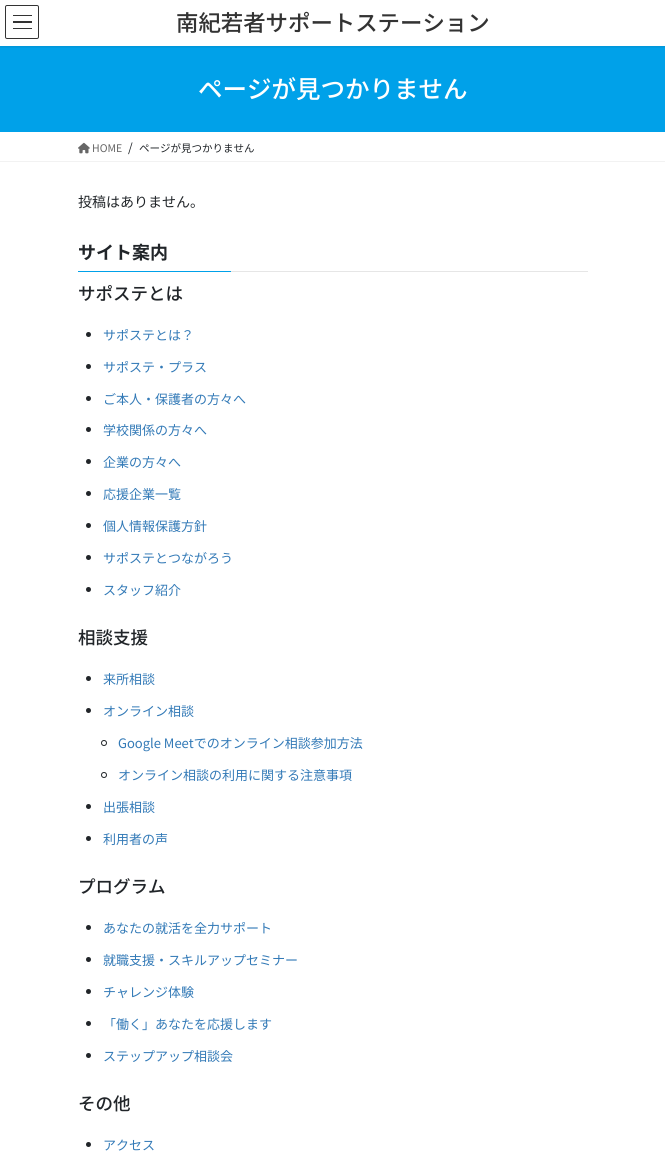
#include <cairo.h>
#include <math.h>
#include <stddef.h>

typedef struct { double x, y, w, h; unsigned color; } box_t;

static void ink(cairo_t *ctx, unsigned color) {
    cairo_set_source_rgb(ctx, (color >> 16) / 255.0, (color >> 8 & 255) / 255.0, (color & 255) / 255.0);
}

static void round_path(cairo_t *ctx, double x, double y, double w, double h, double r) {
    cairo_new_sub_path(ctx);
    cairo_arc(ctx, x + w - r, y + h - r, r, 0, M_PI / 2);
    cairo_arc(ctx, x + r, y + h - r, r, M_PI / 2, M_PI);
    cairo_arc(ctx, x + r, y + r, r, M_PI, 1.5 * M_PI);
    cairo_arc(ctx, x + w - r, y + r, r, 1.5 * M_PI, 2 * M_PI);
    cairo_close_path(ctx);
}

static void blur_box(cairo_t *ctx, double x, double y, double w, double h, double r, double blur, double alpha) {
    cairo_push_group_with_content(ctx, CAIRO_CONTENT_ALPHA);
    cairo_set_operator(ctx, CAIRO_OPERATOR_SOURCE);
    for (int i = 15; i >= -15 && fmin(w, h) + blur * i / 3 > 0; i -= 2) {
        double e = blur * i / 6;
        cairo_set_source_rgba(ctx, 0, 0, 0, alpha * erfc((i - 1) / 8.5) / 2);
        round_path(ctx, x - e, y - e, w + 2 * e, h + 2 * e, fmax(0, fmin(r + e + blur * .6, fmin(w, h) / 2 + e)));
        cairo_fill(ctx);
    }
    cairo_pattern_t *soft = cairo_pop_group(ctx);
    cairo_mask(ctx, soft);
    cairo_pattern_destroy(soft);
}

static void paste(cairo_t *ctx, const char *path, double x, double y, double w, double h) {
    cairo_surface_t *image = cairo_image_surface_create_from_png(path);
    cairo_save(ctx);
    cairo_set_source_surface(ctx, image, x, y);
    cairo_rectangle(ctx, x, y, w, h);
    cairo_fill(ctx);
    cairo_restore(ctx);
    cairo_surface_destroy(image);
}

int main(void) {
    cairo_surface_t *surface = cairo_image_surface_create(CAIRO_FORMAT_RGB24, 665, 1168);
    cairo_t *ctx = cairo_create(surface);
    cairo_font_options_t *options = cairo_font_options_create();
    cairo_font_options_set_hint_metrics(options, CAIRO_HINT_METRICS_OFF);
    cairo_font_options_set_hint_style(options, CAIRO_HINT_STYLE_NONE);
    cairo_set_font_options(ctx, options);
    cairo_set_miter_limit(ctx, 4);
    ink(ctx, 0xFFFFFF);
    cairo_paint(ctx);
    ink(ctx, 0x00A1E9);
    cairo_rectangle(ctx, 0, 46, 665, 86);
    cairo_fill(ctx);
    cairo_save(ctx);
    cairo_rectangle(ctx, 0, 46, 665, 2);
    cairo_clip(ctx);
    ink(ctx, 0x000000);
    blur_box(ctx, 0, 1, 665, 46, 0, 1.5, 0.1);
    cairo_restore(ctx);
    {
        static const box_t items[] = {
            {13, 15, 19, 1, 0x333333},
            {13, 21, 19, 2, 0x333333},
            {13, 28, 19, 1, 0x333333},
        };
        for (size_t i = 0; i < sizeof items / sizeof *items; i++) {
            ink(ctx, items[i].color);
            cairo_rectangle(ctx, items[i].x, items[i].y, items[i].w, items[i].h);
            cairo_fill(ctx);
        }
    }
    round_path(ctx, 5.5, 5.5, 33, 33, 1.5);
    cairo_set_line_width(ctx, 1);
    cairo_stroke(ctx);
    cairo_select_font_face(ctx, "Noto Sans JP Medium", CAIRO_FONT_SLANT_NORMAL, CAIRO_FONT_WEIGHT_NORMAL);
    cairo_set_font_size(ctx, 22.4);
    cairo_move_to(ctx, 176, 31);
    cairo_show_text(ctx, "南紀若者サポートステーション");
    cairo_set_font_size(ctx, 24.5);
    ink(ctx, 0xFFFFFF);
    cairo_move_to(ctx, 198, 98);
    cairo_show_text(ctx, "ページが見つかりません");
    ink(ctx, 0xF2F2F2);
    cairo_rectangle(ctx, 0, 161, 665, 1);
    cairo_fill(ctx);
    paste(ctx, "media/1.png", 78, 142, 12, 12);
    cairo_select_font_face(ctx, "Noto Sans JP", CAIRO_FONT_SLANT_NORMAL, CAIRO_FONT_WEIGHT_NORMAL);
    cairo_set_font_size(ctx, 10.5);
    ink(ctx, 0x666666);
    cairo_move_to(ctx, 92, 152);
    cairo_show_text(ctx, "HOME");
    cairo_set_font_size(ctx, 12);
    ink(ctx, 0x212529);
    cairo_move_to(ctx, 128, 152);
    cairo_show_text(ctx, "/");
    cairo_set_font_size(ctx, 10.5);
    cairo_move_to(ctx, 139, 152);
    cairo_show_text(ctx, "ページが見つかりません");
    cairo_set_font_size(ctx, 14);
    cairo_move_to(ctx, 78, 207);
    cairo_show_text(ctx, "投稿はありません。");
    ink(ctx, 0xE6E6E6);
    cairo_rectangle(ctx, 231, 271, 357, 1);
    cairo_fill(ctx);
    cairo_select_font_face(ctx, "Noto Sans JP", CAIRO_FONT_SLANT_NORMAL, CAIRO_FONT_WEIGHT_BOLD);
    cairo_set_font_size(ctx, 18);
    ink(ctx, 0x212529);
    cairo_move_to(ctx, 78, 259);
    cairo_show_text(ctx, "サイト案内");
    ink(ctx, 0x00A1E9);
    cairo_rectangle(ctx, 78, 271, 153, 1);
    cairo_fill(ctx);
    cairo_select_font_face(ctx, "Noto Sans JP Medium", CAIRO_FONT_SLANT_NORMAL, CAIRO_FONT_WEIGHT_NORMAL);
    cairo_set_font_size(ctx, 17.5);
    ink(ctx, 0x212529);
    cairo_move_to(ctx, 78, 300);
    cairo_show_text(ctx, "サポステとは");
    cairo_new_path(ctx);
    cairo_arc(ctx, 88.5, 334.5, 2.5, 0, 2 * M_PI);
    cairo_fill(ctx);
    cairo_select_font_face(ctx, "Noto Sans JP", CAIRO_FONT_SLANT_NORMAL, CAIRO_FONT_WEIGHT_NORMAL);
    cairo_set_font_size(ctx, 13);
    ink(ctx, 0x337AB7);
    cairo_move_to(ctx, 103, 340);
    cairo_show_text(ctx, "サポステとは？");
    ink(ctx, 0x212529);
    cairo_new_path(ctx);
    cairo_arc(ctx, 88.5, 366.5, 2.5, 0, 2 * M_PI);
    cairo_fill(ctx);
    ink(ctx, 0x337AB7);
    cairo_move_to(ctx, 103, 372);
    cairo_show_text(ctx, "サポステ・プラス");
    ink(ctx, 0x212529);
    cairo_new_path(ctx);
    cairo_arc(ctx, 88.5, 398.5, 2.5, 0, 2 * M_PI);
    cairo_fill(ctx);
    ink(ctx, 0x337AB7);
    cairo_move_to(ctx, 103, 404);
    cairo_show_text(ctx, "ご本人・保護者の方々へ");
    ink(ctx, 0x212529);
    cairo_new_path(ctx);
    cairo_arc(ctx, 88.5, 429.5, 2.5, 0, 2 * M_PI);
    cairo_fill(ctx);
    ink(ctx, 0x337AB7);
    cairo_move_to(ctx, 103, 435);
    cairo_show_text(ctx, "学校関係の方々へ");
    ink(ctx, 0x212529);
    cairo_new_path(ctx);
    cairo_arc(ctx, 88.5, 461.5, 2.5, 0, 2 * M_PI);
    cairo_fill(ctx);
    ink(ctx, 0x337AB7);
    cairo_move_to(ctx, 103, 467);
    cairo_show_text(ctx, "企業の方々へ");
    ink(ctx, 0x212529);
    cairo_new_path(ctx);
    cairo_arc(ctx, 88.5, 493.5, 2.5, 0, 2 * M_PI);
    cairo_fill(ctx);
    ink(ctx, 0x337AB7);
    cairo_move_to(ctx, 103, 499);
    cairo_show_text(ctx, "応援企業一覧");
    ink(ctx, 0x212529);
    cairo_new_path(ctx);
    cairo_arc(ctx, 88.5, 525.5, 2.5, 0, 2 * M_PI);
    cairo_fill(ctx);
    ink(ctx, 0x337AB7);
    cairo_move_to(ctx, 103, 531);
    cairo_show_text(ctx, "個人情報保護方針");
    ink(ctx, 0x212529);
    cairo_new_path(ctx);
    cairo_arc(ctx, 88.5, 557.5, 2.5, 0, 2 * M_PI);
    cairo_fill(ctx);
    ink(ctx, 0x337AB7);
    cairo_move_to(ctx, 103, 563);
    cairo_show_text(ctx, "サポステとつながろう");
    ink(ctx, 0x212529);
    cairo_new_path(ctx);
    cairo_arc(ctx, 88.5, 589.5, 2.5, 0, 2 * M_PI);
    cairo_fill(ctx);
    ink(ctx, 0x337AB7);
    cairo_move_to(ctx, 103, 595);
    cairo_show_text(ctx, "スタッフ紹介");
    cairo_select_font_face(ctx, "Noto Sans JP Medium", CAIRO_FONT_SLANT_NORMAL, CAIRO_FONT_WEIGHT_NORMAL);
    cairo_set_font_size(ctx, 17.5);
    ink(ctx, 0x212529);
    cairo_move_to(ctx, 78, 644);
    cairo_show_text(ctx, "相談支援");
    cairo_new_path(ctx);
    cairo_arc(ctx, 88.5, 678.5, 2.5, 0, 2 * M_PI);
    cairo_fill(ctx);
    cairo_select_font_face(ctx, "Noto Sans JP", CAIRO_FONT_SLANT_NORMAL, CAIRO_FONT_WEIGHT_NORMAL);
    cairo_set_font_size(ctx, 13);
    ink(ctx, 0x337AB7);
    cairo_move_to(ctx, 103, 684);
    cairo_show_text(ctx, "来所相談");
    ink(ctx, 0x212529);
    cairo_new_path(ctx);
    cairo_arc(ctx, 88.5, 710.5, 2.5, 0, 2 * M_PI);
    cairo_fill(ctx);
    ink(ctx, 0x337AB7);
    cairo_move_to(ctx, 103, 716);
    cairo_show_text(ctx, "オンライン相談");
    cairo_new_path(ctx);
    cairo_arc(ctx, 104, 743, 2.5, 0, 2 * M_PI);
    ink(ctx, 0x212529);
    cairo_stroke(ctx);
    ink(ctx, 0x337AB7);
    cairo_move_to(ctx, 118, 748);
    cairo_show_text(ctx, "Google Meetでのオンライン相談参加方法");
    cairo_new_path(ctx);
    cairo_arc(ctx, 104, 775, 2.5, 0, 2 * M_PI);
    ink(ctx, 0x212529);
    cairo_stroke(ctx);
    ink(ctx, 0x337AB7);
    cairo_move_to(ctx, 118, 780);
    cairo_show_text(ctx, "オンライン相談の利用に関する注意事項");
    ink(ctx, 0x212529);
    cairo_new_path(ctx);
    cairo_arc(ctx, 88.5, 806.5, 2.5, 0, 2 * M_PI);
    cairo_fill(ctx);
    ink(ctx, 0x337AB7);
    cairo_move_to(ctx, 103, 812);
    cairo_show_text(ctx, "出張相談");
    ink(ctx, 0x212529);
    cairo_new_path(ctx);
    cairo_arc(ctx, 88.5, 838.5, 2.5, 0, 2 * M_PI);
    cairo_fill(ctx);
    ink(ctx, 0x337AB7);
    cairo_move_to(ctx, 103, 844);
    cairo_show_text(ctx, "利用者の声");
    cairo_select_font_face(ctx, "Noto Sans JP Medium", CAIRO_FONT_SLANT_NORMAL, CAIRO_FONT_WEIGHT_NORMAL);
    cairo_set_font_size(ctx, 17.5);
    ink(ctx, 0x212529);
    cairo_move_to(ctx, 78, 893);
    cairo_show_text(ctx, "プログラム");
    cairo_new_path(ctx);
    cairo_arc(ctx, 88.5, 927.5, 2.5, 0, 2 * M_PI);
    cairo_fill(ctx);
    cairo_select_font_face(ctx, "Noto Sans JP", CAIRO_FONT_SLANT_NORMAL, CAIRO_FONT_WEIGHT_NORMAL);
    cairo_set_font_size(ctx, 13);
    ink(ctx, 0x337AB7);
    cairo_move_to(ctx, 103, 933);
    cairo_show_text(ctx, "あなたの就活を全力サポート");
    ink(ctx, 0x212529);
    cairo_new_path(ctx);
    cairo_arc(ctx, 88.5, 959.5, 2.5, 0, 2 * M_PI);
    cairo_fill(ctx);
    ink(ctx, 0x337AB7);
    cairo_move_to(ctx, 103, 965);
    cairo_show_text(ctx, "就職支援・スキルアップセミナー");
    ink(ctx, 0x212529);
    cairo_new_path(ctx);
    cairo_arc(ctx, 88.5, 991.5, 2.5, 0, 2 * M_PI);
    cairo_fill(ctx);
    ink(ctx, 0x337AB7);
    cairo_move_to(ctx, 103, 997);
    cairo_show_text(ctx, "チャレンジ体験");
    ink(ctx, 0x212529);
    cairo_new_path(ctx);
    cairo_arc(ctx, 88.5, 1023.5, 2.5, 0, 2 * M_PI);
    cairo_fill(ctx);
    ink(ctx, 0x337AB7);
    cairo_move_to(ctx, 103, 1029);
    cairo_show_text(ctx, "「働く」あなたを応援します");
    ink(ctx, 0x212529);
    cairo_new_path(ctx);
    cairo_arc(ctx, 88.5, 1055.5, 2.5, 0, 2 * M_PI);
    cairo_fill(ctx);
    ink(ctx, 0x337AB7);
    cairo_move_to(ctx, 103, 1061);
    cairo_show_text(ctx, "ステップアップ相談会");
    cairo_select_font_face(ctx, "Noto Sans JP Medium", CAIRO_FONT_SLANT_NORMAL, CAIRO_FONT_WEIGHT_NORMAL);
    cairo_set_font_size(ctx, 17.5);
    ink(ctx, 0x212529);
    cairo_move_to(ctx, 78, 1110);
    cairo_show_text(ctx, "その他");
    cairo_new_path(ctx);
    cairo_arc(ctx, 88.5, 1144.5, 2.5, 0, 2 * M_PI);
    cairo_fill(ctx);
    cairo_select_font_face(ctx, "Noto Sans JP", CAIRO_FONT_SLANT_NORMAL, CAIRO_FONT_WEIGHT_NORMAL);
    cairo_set_font_size(ctx, 13);
    ink(ctx, 0x337AB7);
    cairo_move_to(ctx, 103, 1150);
    cairo_show_text(ctx, "アクセス");
    cairo_surface_write_to_png(surface, "image.png");
    cairo_font_options_destroy(options);
    cairo_destroy(ctx);
    cairo_surface_destroy(surface);
    return 0;
}
